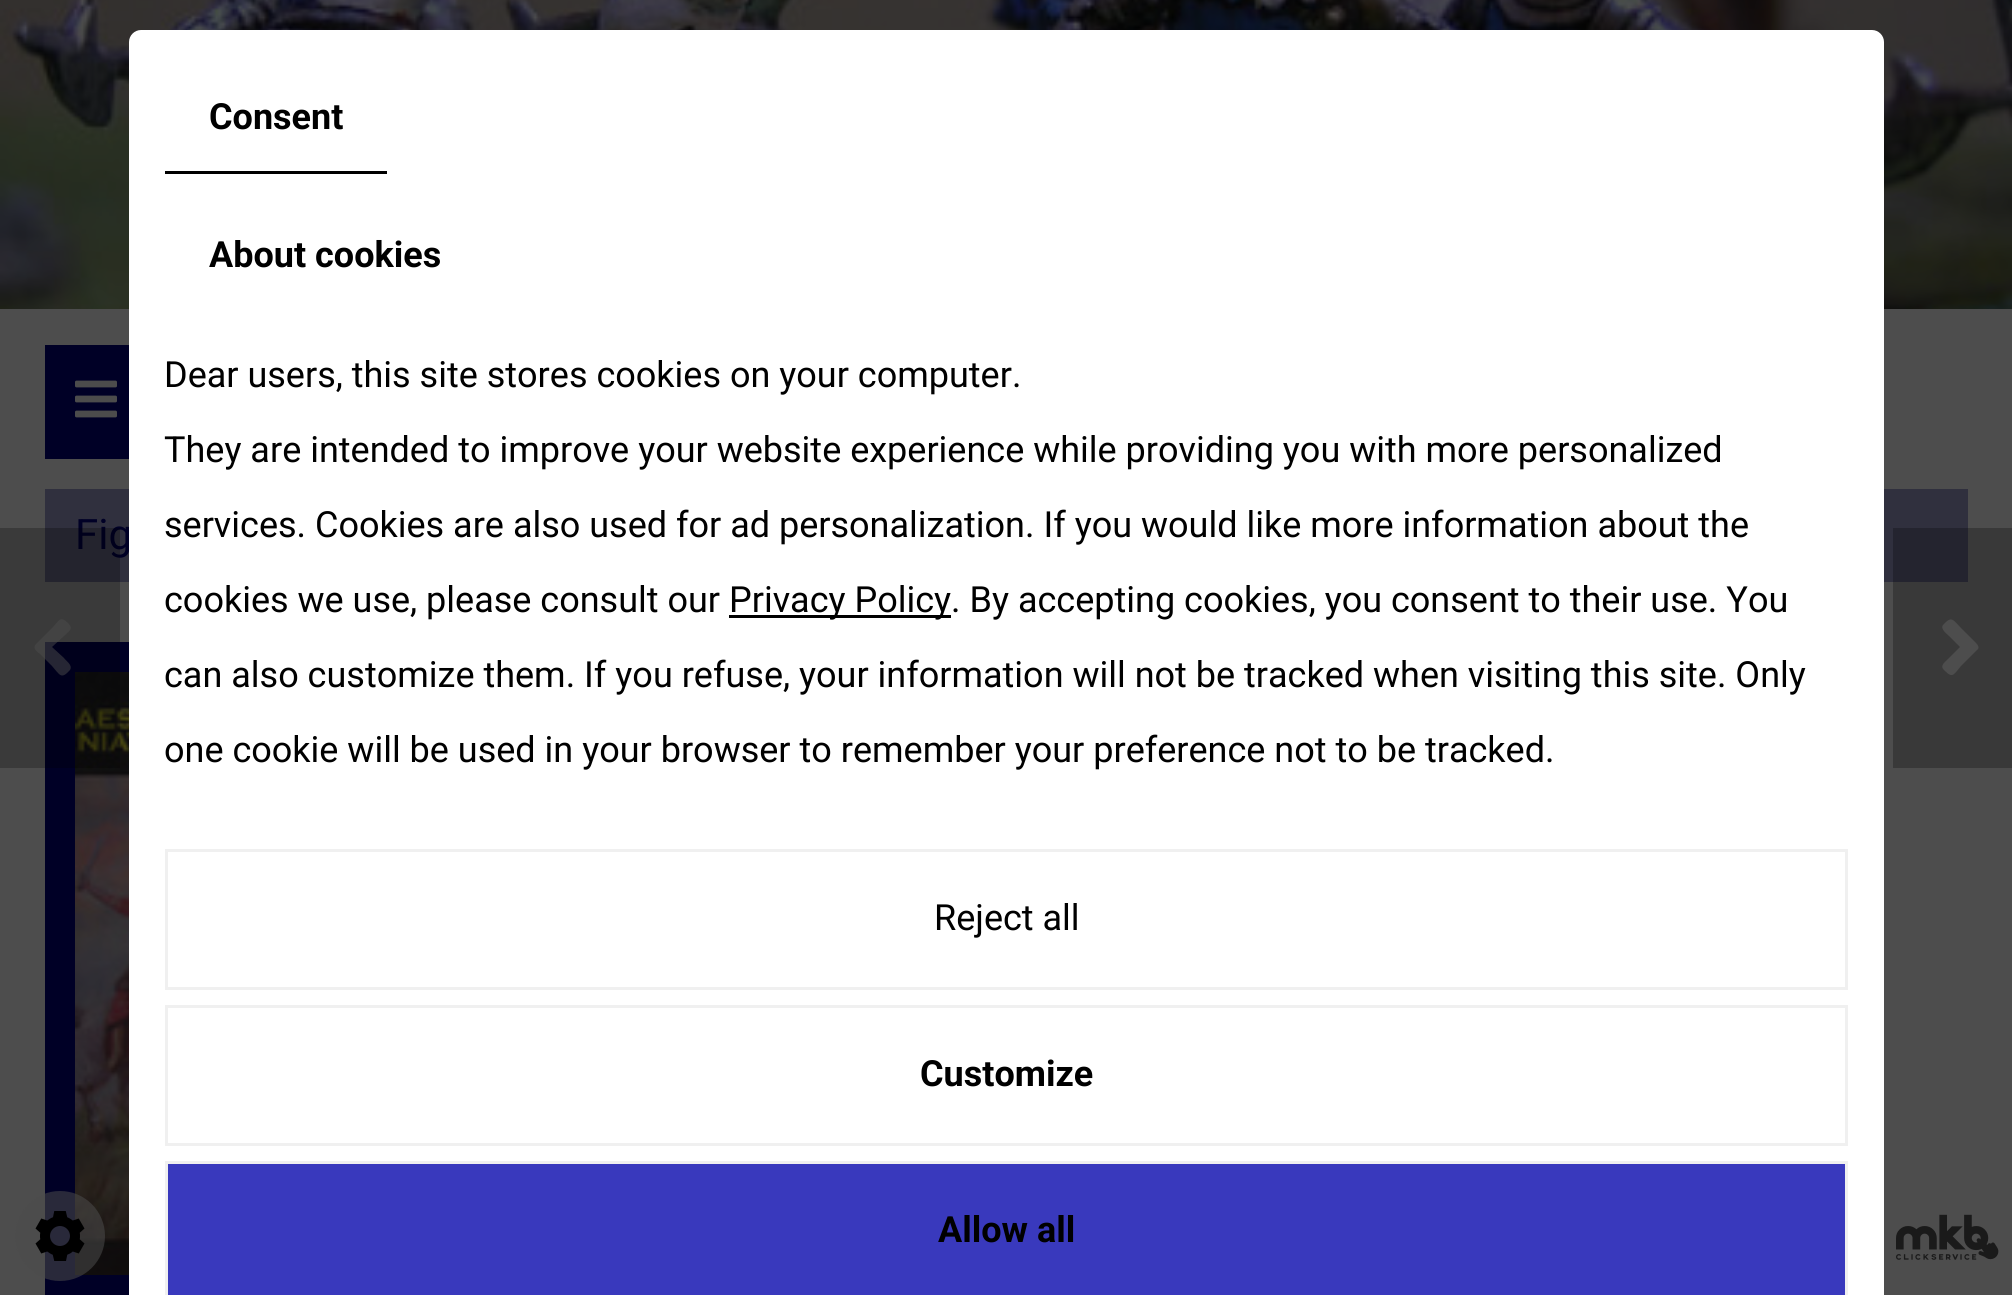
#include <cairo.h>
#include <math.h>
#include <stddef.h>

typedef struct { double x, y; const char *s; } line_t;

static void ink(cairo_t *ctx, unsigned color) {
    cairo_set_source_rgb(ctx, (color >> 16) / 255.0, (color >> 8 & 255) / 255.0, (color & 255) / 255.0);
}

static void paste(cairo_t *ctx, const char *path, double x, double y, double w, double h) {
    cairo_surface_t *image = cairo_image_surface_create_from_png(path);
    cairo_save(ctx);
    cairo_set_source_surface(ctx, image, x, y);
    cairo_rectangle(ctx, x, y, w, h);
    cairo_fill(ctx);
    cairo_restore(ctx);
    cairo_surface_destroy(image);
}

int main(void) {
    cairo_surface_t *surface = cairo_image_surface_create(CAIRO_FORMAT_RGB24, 2012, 1295);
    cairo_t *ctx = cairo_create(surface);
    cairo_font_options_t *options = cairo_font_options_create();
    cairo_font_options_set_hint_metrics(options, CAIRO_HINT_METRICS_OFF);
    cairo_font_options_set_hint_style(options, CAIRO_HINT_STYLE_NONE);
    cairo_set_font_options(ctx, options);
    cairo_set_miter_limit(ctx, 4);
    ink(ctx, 0x4D4D4D);
    cairo_paint(ctx);
    ink(ctx, 0x393939);
    cairo_rectangle(ctx, 1893, 528, 119, 240);
    cairo_fill(ctx);
    paste(ctx, "media/1.png", 0, 0, 2012, 309);
    ink(ctx, 0x000026);
    cairo_rectangle(ctx, 45, 345, 84, 114);
    cairo_fill(ctx);
    paste(ctx, "media/2.png", 75, 380, 42, 38);
    ink(ctx, 0x30303E);
    cairo_rectangle(ctx, 45, 489, 1923, 93);
    cairo_fill(ctx);
    ink(ctx, 0x24242F);
    cairo_rectangle(ctx, 1893, 528, 75, 54);
    cairo_fill(ctx);
    cairo_select_font_face(ctx, "Roboto", CAIRO_FONT_SLANT_NORMAL, CAIRO_FONT_WEIGHT_NORMAL);
    cairo_set_font_size(ctx, 42);
    ink(ctx, 0x000026);
    cairo_move_to(ctx, 75, 549);
    cairo_show_text(ctx, "Fig");
    cairo_rectangle(ctx, 60, 657, 786, 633);
    cairo_set_line_width(ctx, 30);
    cairo_stroke(ctx);
    paste(ctx, "media/3.png", 75, 672, 54, 603);
    cairo_set_source_rgba(ctx, 0, 0, 0, 0.25);
    cairo_rectangle(ctx, 0, 528, 120, 240);
    cairo_fill(ctx);
    cairo_set_source_rgba(ctx, 0.302, 0.302, 0.302, 0.5);
    cairo_new_path(ctx);
    cairo_move_to(ctx, 36, 644);
    cairo_line_to(ctx, 52, 628);
    cairo_curve_to(ctx, 59, 621, 60, 615, 68, 623);
    cairo_curve_to(ctx, 74, 629, 69, 631, 64, 636);
    cairo_line_to(ctx, 52, 647);
    cairo_line_to(ctx, 64, 658);
    cairo_curve_to(ctx, 66, 661, 73, 665, 70, 670);
    cairo_curve_to(ctx, 61, 680, 60, 675, 52, 666);
    cairo_line_to(ctx, 40, 654);
    cairo_curve_to(ctx, 37, 652, 32, 648, 36, 644);
    cairo_close_path(ctx);
    cairo_fill(ctx);
    ink(ctx, 0x4D4D4D);
    cairo_new_path(ctx);
    cairo_move_to(ctx, 1977, 650);
    cairo_line_to(ctx, 1961, 666);
    cairo_curve_to(ctx, 1954, 674, 1953, 679, 1945, 671);
    cairo_curve_to(ctx, 1939, 666, 1944, 663, 1949, 658);
    cairo_line_to(ctx, 1960, 647);
    cairo_line_to(ctx, 1949, 636);
    cairo_curve_to(ctx, 1947, 634, 1940, 629, 1943, 625);
    cairo_curve_to(ctx, 1952, 615, 1953, 620, 1961, 628);
    cairo_line_to(ctx, 1973, 640);
    cairo_curve_to(ctx, 1976, 643, 1981, 647, 1977, 650);
    cairo_close_path(ctx);
    cairo_fill(ctx);
    ink(ctx, 0xFFFFFF);
    cairo_new_path(ctx);
    cairo_move_to(ctx, 141, 30);
    cairo_line_to(ctx, 1872, 30);
    cairo_curve_to(ctx, 1878.5, 30, 1884, 35.5, 1884, 42);
    cairo_line_to(ctx, 1884, 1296);
    cairo_line_to(ctx, 129, 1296);
    cairo_line_to(ctx, 129, 42);
    cairo_curve_to(ctx, 129, 35.5, 134.5, 30, 141, 30);
    cairo_close_path(ctx);
    cairo_fill(ctx);
    ink(ctx, 0x000000);
    cairo_rectangle(ctx, 165, 171, 222, 3);
    cairo_fill(ctx);
    cairo_select_font_face(ctx, "Roboto", CAIRO_FONT_SLANT_NORMAL, CAIRO_FONT_WEIGHT_BOLD);
    cairo_set_font_size(ctx, 36);
    cairo_move_to(ctx, 209, 129);
    cairo_show_text(ctx, "Consent");
    cairo_move_to(ctx, 209, 267);
    cairo_show_text(ctx, "About cookies");
    cairo_select_font_face(ctx, "Roboto", CAIRO_FONT_SLANT_NORMAL, CAIRO_FONT_WEIGHT_NORMAL);
    {
        static const line_t items[] = {
            {164, 387, "Dear users, this site stores cookies on your computer."},
            {164, 462, "They are intended to improve your website experience while providing you with more personalized"},
            {164, 537, "services. Cookies are also used for ad personalization. If you would like more information about the"},
            {164, 612, "cookies we use, please consult our"},
        };
        for (size_t i = 0; i < sizeof items / sizeof *items; i++) {
            cairo_move_to(ctx, items[i].x, items[i].y);
            cairo_show_text(ctx, items[i].s);
        }
    }
    cairo_rectangle(ctx, 729, 615, 222, 3);
    cairo_fill(ctx);
    {
        static const line_t items[] = {
            {729, 612, "Privacy Policy. By accepting cookies, you consent to their use. You"},
            {164, 687, "can also customize them. If you refuse, your information will not be tracked when visiting this site. Only"},
            {164, 762, "one cookie will be used in your browser to remember your preference not to be tracked."},
        };
        for (size_t i = 0; i < sizeof items / sizeof *items; i++) {
            cairo_move_to(ctx, items[i].x, items[i].y);
            cairo_show_text(ctx, items[i].s);
        }
    }
    cairo_rectangle(ctx, 166.5, 850.5, 1680, 138);
    ink(ctx, 0xF0F0F0);
    cairo_set_line_width(ctx, 3);
    cairo_stroke(ctx);
    ink(ctx, 0x000000);
    cairo_move_to(ctx, 934, 930);
    cairo_show_text(ctx, "Reject all");
    cairo_rectangle(ctx, 166.5, 1006.5, 1680, 138);
    ink(ctx, 0xF0F0F0);
    cairo_stroke(ctx);
    cairo_select_font_face(ctx, "Roboto", CAIRO_FONT_SLANT_NORMAL, CAIRO_FONT_WEIGHT_BOLD);
    ink(ctx, 0x000000);
    cairo_move_to(ctx, 920, 1086);
    cairo_show_text(ctx, "Customize");
    ink(ctx, 0x3939BD);
    cairo_rectangle(ctx, 166.5, 1162.5, 1680, 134);
    cairo_fill_preserve(ctx);
    ink(ctx, 0xF0F0F0);
    cairo_stroke(ctx);
    ink(ctx, 0x000000);
    cairo_move_to(ctx, 938, 1242);
    cairo_show_text(ctx, "Allow all");
    cairo_set_source_rgba(ctx, 0.302, 0.302, 0.302, 0.54);
    cairo_new_path(ctx);
    cairo_arc(ctx, 60, 1236, 45, 0, 2 * M_PI);
    cairo_fill(ctx);
    paste(ctx, "media/4.png", 35, 1211, 50, 50);
    paste(ctx, "media/5.png", 1896, 1214, 103, 46);
    cairo_surface_write_to_png(surface, "image.png");
    cairo_font_options_destroy(options);
    cairo_destroy(ctx);
    cairo_surface_destroy(surface);
    return 0;
}
